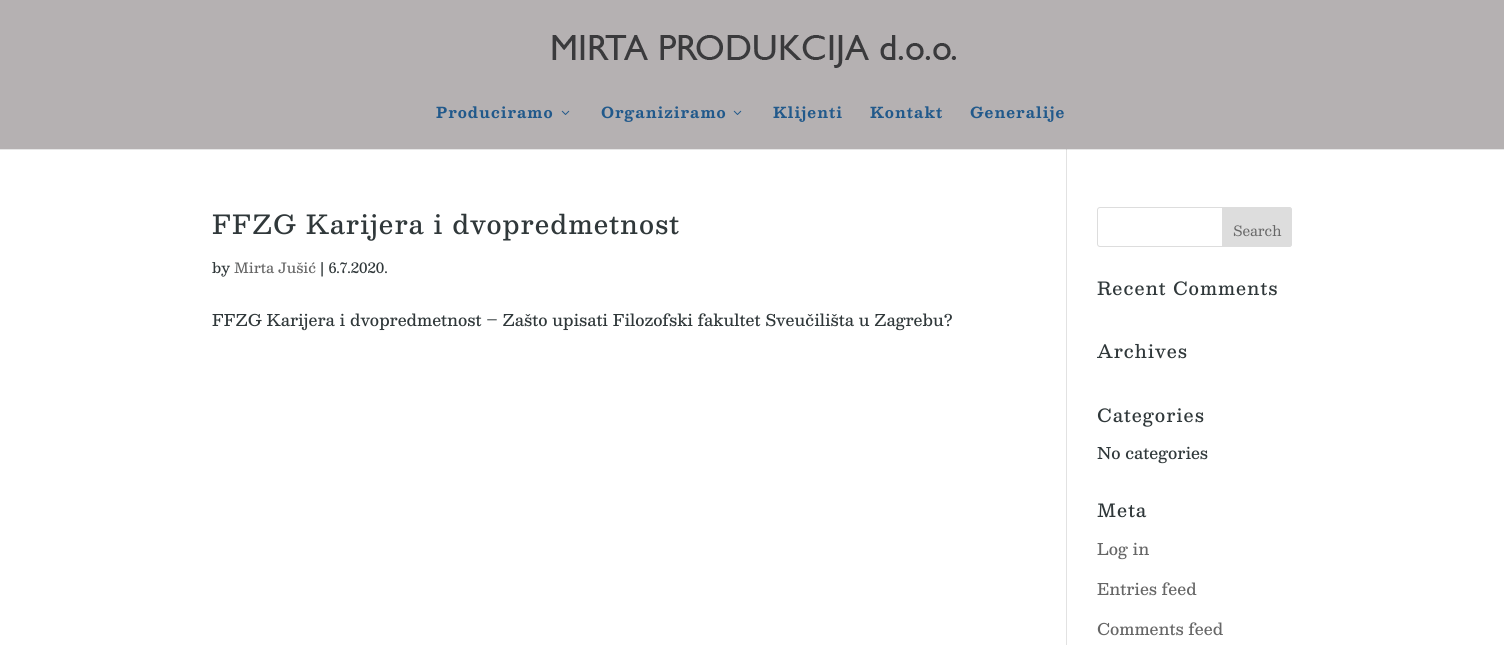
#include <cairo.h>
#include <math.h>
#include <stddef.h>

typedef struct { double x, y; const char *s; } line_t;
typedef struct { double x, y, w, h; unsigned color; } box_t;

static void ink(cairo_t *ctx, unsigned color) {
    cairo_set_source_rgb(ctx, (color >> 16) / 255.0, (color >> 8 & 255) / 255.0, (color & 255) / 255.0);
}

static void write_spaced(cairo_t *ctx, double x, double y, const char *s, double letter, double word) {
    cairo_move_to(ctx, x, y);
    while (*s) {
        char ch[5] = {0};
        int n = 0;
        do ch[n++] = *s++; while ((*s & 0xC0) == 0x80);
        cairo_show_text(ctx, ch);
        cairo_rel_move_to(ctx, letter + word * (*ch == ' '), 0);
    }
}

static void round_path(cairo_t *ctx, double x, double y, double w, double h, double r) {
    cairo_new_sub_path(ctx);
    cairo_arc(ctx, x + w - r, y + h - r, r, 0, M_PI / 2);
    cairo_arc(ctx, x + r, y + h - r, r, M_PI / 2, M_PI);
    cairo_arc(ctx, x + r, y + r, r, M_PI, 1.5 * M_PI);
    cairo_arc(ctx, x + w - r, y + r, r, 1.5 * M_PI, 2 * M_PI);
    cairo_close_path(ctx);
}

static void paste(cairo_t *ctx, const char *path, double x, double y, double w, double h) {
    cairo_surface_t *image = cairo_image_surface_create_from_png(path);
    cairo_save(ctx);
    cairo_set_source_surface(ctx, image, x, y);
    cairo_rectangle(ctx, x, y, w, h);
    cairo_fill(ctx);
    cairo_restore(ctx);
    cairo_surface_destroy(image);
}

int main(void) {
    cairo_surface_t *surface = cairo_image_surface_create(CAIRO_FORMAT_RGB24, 1504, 645);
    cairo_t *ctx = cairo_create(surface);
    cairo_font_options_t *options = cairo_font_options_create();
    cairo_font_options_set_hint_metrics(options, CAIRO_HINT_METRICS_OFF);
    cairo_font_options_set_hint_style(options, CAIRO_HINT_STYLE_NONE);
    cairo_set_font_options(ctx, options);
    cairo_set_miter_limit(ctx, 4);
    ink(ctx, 0xB5B1B2);
    cairo_paint(ctx);
    paste(ctx, "media/1.png", 552, 35, 404, 33);
    cairo_select_font_face(ctx, "Besley", CAIRO_FONT_SLANT_NORMAL, CAIRO_FONT_WEIGHT_BOLD);
    cairo_set_font_size(ctx, 15);
    ink(ctx, 0x21598B);
    write_spaced(ctx, 436, 118, "Produciramo", 1, 0);
    paste(ctx, "media/2.png", 561, 110, 9, 5);
    write_spaced(ctx, 601, 118, "Organiziramo", 1, 0);
    paste(ctx, "media/2.png", 733, 110, 9, 5);
    {
        static const line_t items[] = {
            {773, 118, "Klijenti"},
            {870, 118, "Kontakt"},
            {970, 118, "Generalije"},
        };
        for (size_t i = 0; i < sizeof items / sizeof *items; i++) {
            write_spaced(ctx, items[i].x, items[i].y, items[i].s, 1, 0);
        }
    }
    {
        static const box_t items[] = {
            {0, 150, 1504, 495, 0xFFFFFF},
            {0, 149, 1504, 1, 0xE6E6E6},
            {1066, 149, 1, 496, 0xE2E2E2},
            {1066, 149, 1, 1, 0xCBCBCB},
        };
        for (size_t i = 0; i < sizeof items / sizeof *items; i++) {
            ink(ctx, items[i].color);
            cairo_rectangle(ctx, items[i].x, items[i].y, items[i].w, items[i].h);
            cairo_fill(ctx);
        }
    }
    cairo_select_font_face(ctx, "Besley Medium", CAIRO_FONT_SLANT_NORMAL, CAIRO_FONT_WEIGHT_NORMAL);
    cairo_set_font_size(ctx, 26);
    ink(ctx, 0x30383A);
    write_spaced(ctx, 212, 234, "FFZG Karijera i dvopredmetnost", 1, 0);
    cairo_set_font_size(ctx, 14);
    cairo_move_to(ctx, 212, 273);
    cairo_show_text(ctx, "by");
    ink(ctx, 0x666666);
    cairo_move_to(ctx, 234, 273);
    cairo_show_text(ctx, "Mirta Jušić");
    ink(ctx, 0x30383A);
    cairo_move_to(ctx, 320, 273);
    cairo_show_text(ctx, "| 6.7.2020.");
    cairo_set_font_size(ctx, 16);
    cairo_move_to(ctx, 212, 326);
    cairo_show_text(ctx, "FFZG Karijera i dvopredmetnost – Zašto upisati Filozofski fakultet Sveučilišta u Zagrebu?");
    round_path(ctx, 1097.5, 207.5, 194, 39, 2.5);
    ink(ctx, 0xDDDDDD);
    cairo_set_line_width(ctx, 1);
    cairo_stroke(ctx);
    cairo_new_path(ctx);
    cairo_move_to(ctx, 1222.5, 207.5);
    cairo_line_to(ctx, 1289, 207.5);
    cairo_curve_to(ctx, 1290.5, 207.5, 1291.5, 208.5, 1291.5, 210);
    cairo_line_to(ctx, 1291.5, 244);
    cairo_curve_to(ctx, 1291.5, 245.5, 1290.5, 246.5, 1289, 246.5);
    cairo_line_to(ctx, 1222.5, 246.5);
    cairo_close_path(ctx);
    cairo_fill_preserve(ctx);
    cairo_stroke(ctx);
    cairo_select_font_face(ctx, "Besley", CAIRO_FONT_SLANT_NORMAL, CAIRO_FONT_WEIGHT_NORMAL);
    cairo_set_font_size(ctx, 14);
    ink(ctx, 0x666666);
    cairo_move_to(ctx, 1233, 236);
    cairo_show_text(ctx, "Search");
    cairo_select_font_face(ctx, "Besley Medium", CAIRO_FONT_SLANT_NORMAL, CAIRO_FONT_WEIGHT_NORMAL);
    cairo_set_font_size(ctx, 18);
    ink(ctx, 0x30383A);
    {
        static const line_t items[] = {
            {1097, 295, "Recent Comments"},
            {1097, 358, "Archives"},
            {1097, 422, "Categories"},
        };
        for (size_t i = 0; i < sizeof items / sizeof *items; i++) {
            write_spaced(ctx, items[i].x, items[i].y, items[i].s, 1, 0);
        }
    }
    cairo_set_font_size(ctx, 16);
    cairo_move_to(ctx, 1097, 459);
    cairo_show_text(ctx, "No categories");
    cairo_set_font_size(ctx, 18);
    write_spaced(ctx, 1097, 517, "Meta", 1, 0);
    cairo_set_font_size(ctx, 16);
    ink(ctx, 0x666666);
    {
        static const line_t items[] = {
            {1097, 555, "Log in"},
            {1097, 595, "Entries feed"},
            {1097, 635, "Comments feed"},
        };
        for (size_t i = 0; i < sizeof items / sizeof *items; i++) {
            cairo_move_to(ctx, items[i].x, items[i].y);
            cairo_show_text(ctx, items[i].s);
        }
    }
    cairo_surface_write_to_png(surface, "image.png");
    cairo_font_options_destroy(options);
    cairo_destroy(ctx);
    cairo_surface_destroy(surface);
    return 0;
}
